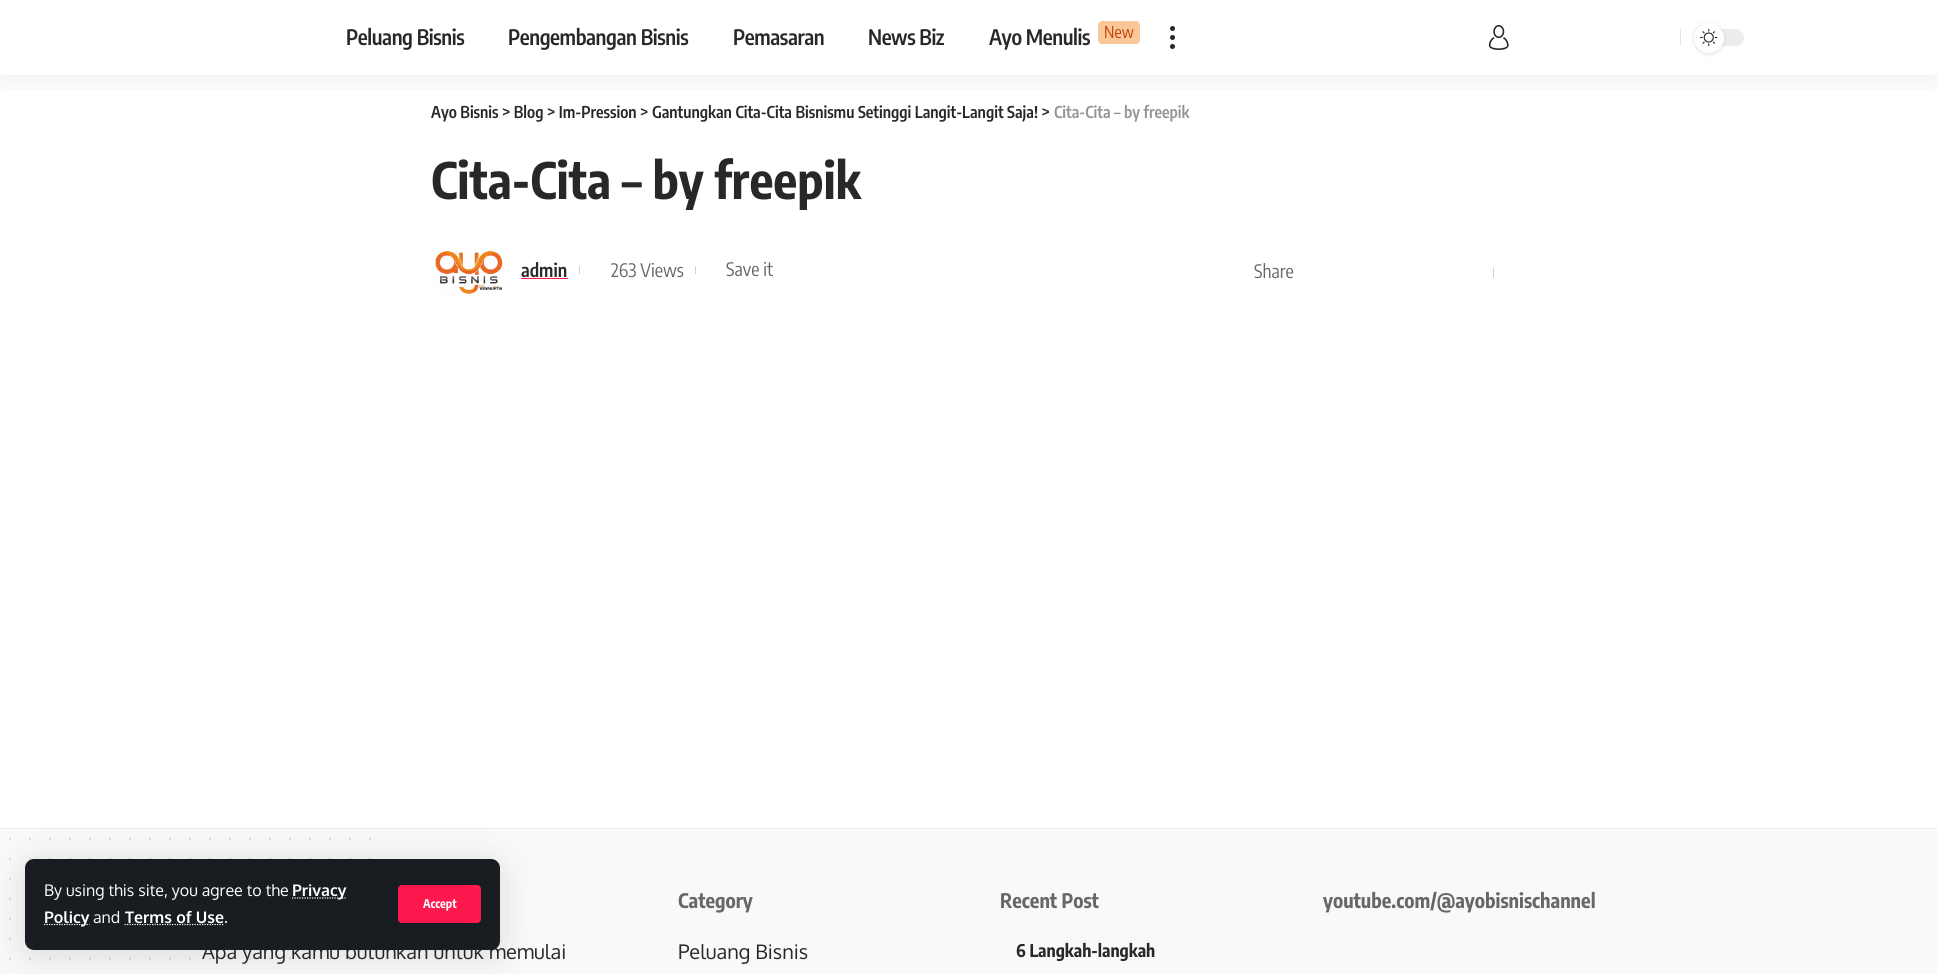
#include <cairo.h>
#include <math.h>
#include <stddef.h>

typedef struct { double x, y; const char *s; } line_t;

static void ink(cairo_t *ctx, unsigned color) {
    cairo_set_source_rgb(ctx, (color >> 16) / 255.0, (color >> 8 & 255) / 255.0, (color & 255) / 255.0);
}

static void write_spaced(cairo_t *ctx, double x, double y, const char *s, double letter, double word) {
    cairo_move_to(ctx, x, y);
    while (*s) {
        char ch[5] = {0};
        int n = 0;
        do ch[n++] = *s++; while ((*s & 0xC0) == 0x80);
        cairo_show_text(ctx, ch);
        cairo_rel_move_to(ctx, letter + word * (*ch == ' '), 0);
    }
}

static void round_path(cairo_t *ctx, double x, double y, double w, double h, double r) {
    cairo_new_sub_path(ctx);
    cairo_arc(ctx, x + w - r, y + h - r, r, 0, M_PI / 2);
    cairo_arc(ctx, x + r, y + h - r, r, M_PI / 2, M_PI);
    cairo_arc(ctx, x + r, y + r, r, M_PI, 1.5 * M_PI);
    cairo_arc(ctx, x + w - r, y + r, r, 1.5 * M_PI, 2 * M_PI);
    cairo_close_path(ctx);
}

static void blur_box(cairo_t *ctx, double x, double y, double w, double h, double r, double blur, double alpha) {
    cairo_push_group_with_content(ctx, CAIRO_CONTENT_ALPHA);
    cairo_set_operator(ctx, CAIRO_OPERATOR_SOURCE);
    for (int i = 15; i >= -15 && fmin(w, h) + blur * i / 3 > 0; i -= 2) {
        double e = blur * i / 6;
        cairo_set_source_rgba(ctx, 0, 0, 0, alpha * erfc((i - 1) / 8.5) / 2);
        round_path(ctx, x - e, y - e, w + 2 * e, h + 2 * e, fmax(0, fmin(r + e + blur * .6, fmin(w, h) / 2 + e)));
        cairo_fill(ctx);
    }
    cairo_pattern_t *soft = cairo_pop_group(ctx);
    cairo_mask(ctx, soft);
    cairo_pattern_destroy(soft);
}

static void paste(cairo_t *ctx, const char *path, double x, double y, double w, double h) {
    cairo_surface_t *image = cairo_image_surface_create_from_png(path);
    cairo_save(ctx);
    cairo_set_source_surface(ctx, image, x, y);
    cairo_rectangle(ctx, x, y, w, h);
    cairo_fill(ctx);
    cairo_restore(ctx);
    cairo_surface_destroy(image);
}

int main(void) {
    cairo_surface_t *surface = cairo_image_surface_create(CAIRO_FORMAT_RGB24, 1937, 974);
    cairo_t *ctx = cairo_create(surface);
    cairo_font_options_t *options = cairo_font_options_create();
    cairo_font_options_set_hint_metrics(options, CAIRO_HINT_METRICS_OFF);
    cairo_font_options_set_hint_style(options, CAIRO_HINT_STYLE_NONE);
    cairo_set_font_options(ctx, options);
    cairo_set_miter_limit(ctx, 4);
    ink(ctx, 0xFFFFFF);
    cairo_paint(ctx);
    cairo_save(ctx);
    cairo_rectangle(ctx, 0, 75, 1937, 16);
    cairo_clip(ctx);
    ink(ctx, 0x000000);
    blur_box(ctx, 0, 5, 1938, 75, 0, 19, 0.07);
    cairo_restore(ctx);
    cairo_select_font_face(ctx, "Encode Sans Condensed SemiBold", CAIRO_FONT_SLANT_NORMAL, CAIRO_FONT_WEIGHT_NORMAL);
    cairo_set_font_size(ctx, 21.25);
    ink(ctx, 0x282828);
    {
        static const line_t items[] = {
            {346, 45, "Peluang Bisnis"},
            {508, 45, "Pengembangan Bisnis"},
            {733, 45, "Pemasaran"},
            {868, 45, "News Biz"},
            {989, 45, "Ayo Menulis"},
        };
        for (size_t i = 0; i < sizeof items / sizeof *items; i++) {
            write_spaced(ctx, items[i].x, items[i].y, items[i].s, -0.4, 0);
        }
    }
    ink(ctx, 0xFAC898);
    round_path(ctx, 1098, 21, 42, 23, 4);
    cairo_fill(ctx);
    cairo_select_font_face(ctx, "Encode Sans Condensed", CAIRO_FONT_SLANT_NORMAL, CAIRO_FONT_WEIGHT_NORMAL);
    cairo_set_font_size(ctx, 16.25);
    ink(ctx, 0xC04000);
    cairo_move_to(ctx, 1104, 38);
    cairo_show_text(ctx, "New");
    ink(ctx, 0x282828);
    cairo_new_path(ctx);
    cairo_arc(ctx, 1172.5, 28.5, 2.5, 0, 2 * M_PI);
    cairo_fill(ctx);
    cairo_arc(ctx, 1172.5, 37.5, 2.5, 0, 2 * M_PI);
    cairo_fill(ctx);
    cairo_arc(ctx, 1172.5, 46.5, 2.5, 0, 2 * M_PI);
    cairo_fill(ctx);
    paste(ctx, "media/1.png", 1488, 25, 21, 25);
    ink(ctx, 0xE4E4E4);
    cairo_rectangle(ctx, 1680, 29, 1, 17);
    cairo_fill(ctx);
    ink(ctx, 0xEDEDED);
    round_path(ctx, 1694, 29, 50, 17, 8.5);
    cairo_fill(ctx);
    ink(ctx, 0x000000);
    blur_box(ctx, 1694, 24, 30, 30, 15, 2.5, 0.12);
    ink(ctx, 0xFFFFFF);
    cairo_arc(ctx, 1709, 38, 15, 0, 2 * M_PI);
    cairo_fill(ctx);
    paste(ctx, "media/2.png", 1700, 29, 18, 17);
    ink(ctx, 0xEDEDED);
    cairo_rectangle(ctx, 0, 828, 1937, 1);
    cairo_fill(ctx);
    ink(ctx, 0xF9F9F9);
    cairo_rectangle(ctx, 0, 829, 1937, 145);
    cairo_fill(ctx);
    cairo_new_path(ctx);
    cairo_move_to(ctx, 10, 838.8);
    cairo_line_to(ctx, 370.2, 838.8);
    ink(ctx, 0xCFCFCF);
    cairo_set_line_width(ctx, 1.9);
    cairo_set_line_cap(ctx, CAIRO_LINE_CAP_ROUND);
    cairo_set_dash(ctx, (double[]){0, 20}, 2, 0);
    cairo_stroke(ctx);
    cairo_new_path(ctx);
    cairo_move_to(ctx, 10, 858.8);
    cairo_line_to(ctx, 370.2, 858.8);
    cairo_stroke(ctx);
    cairo_new_path(ctx);
    cairo_move_to(ctx, 10, 878.8);
    cairo_line_to(ctx, 370.2, 878.8);
    cairo_stroke(ctx);
    cairo_new_path(ctx);
    cairo_move_to(ctx, 10, 898.8);
    cairo_line_to(ctx, 370.2, 898.8);
    cairo_stroke(ctx);
    cairo_new_path(ctx);
    cairo_move_to(ctx, 10, 918.8);
    cairo_line_to(ctx, 370.2, 918.8);
    cairo_stroke(ctx);
    cairo_new_path(ctx);
    cairo_move_to(ctx, 10, 938.8);
    cairo_line_to(ctx, 370.2, 938.8);
    cairo_stroke(ctx);
    cairo_new_path(ctx);
    cairo_move_to(ctx, 10, 958.8);
    cairo_line_to(ctx, 370.2, 958.8);
    cairo_stroke(ctx);
    ink(ctx, 0x000000);
    blur_box(ctx, 25, 864, 475, 91, 9, 19, 0.12);
    cairo_select_font_face(ctx, "Oxygen", CAIRO_FONT_SLANT_NORMAL, CAIRO_FONT_WEIGHT_NORMAL);
    cairo_set_font_size(ctx, 20);
    ink(ctx, 0x282828);
    cairo_move_to(ctx, 202, 959);
    cairo_show_text(ctx, "Apa yang kamu butuhkan untuk memulai");
    ink(ctx, 0x191C20);
    round_path(ctx, 25, 859, 475, 91, 9);
    cairo_fill(ctx);
    cairo_set_font_size(ctx, 16);
    ink(ctx, 0xFFFFFF);
    cairo_move_to(ctx, 44, 896);
    cairo_show_text(ctx, "By using this site, you agree to the");
    cairo_new_path(ctx);
    cairo_move_to(ctx, 292, 898);
    cairo_line_to(ctx, 346.5, 898);
    cairo_set_line_width(ctx, 1.2);
    cairo_set_line_cap(ctx, CAIRO_LINE_CAP_BUTT);
    cairo_set_dash(ctx, (double[]){1.25, 1.25}, 2, 0);
    cairo_stroke(ctx);
    cairo_select_font_face(ctx, "Oxygen", CAIRO_FONT_SLANT_NORMAL, CAIRO_FONT_WEIGHT_BOLD);
    cairo_move_to(ctx, 292, 896);
    cairo_show_text(ctx, "Privacy");
    cairo_new_path(ctx);
    cairo_move_to(ctx, 44, 924.5);
    cairo_line_to(ctx, 89.5, 924.5);
    cairo_stroke(ctx);
    cairo_move_to(ctx, 44, 923);
    cairo_show_text(ctx, "Policy");
    cairo_select_font_face(ctx, "Oxygen", CAIRO_FONT_SLANT_NORMAL, CAIRO_FONT_WEIGHT_NORMAL);
    cairo_move_to(ctx, 93, 923);
    cairo_show_text(ctx, "and");
    cairo_new_path(ctx);
    cairo_move_to(ctx, 124.5, 924.5);
    cairo_line_to(ctx, 223.5, 924.5);
    cairo_stroke(ctx);
    cairo_select_font_face(ctx, "Oxygen", CAIRO_FONT_SLANT_NORMAL, CAIRO_FONT_WEIGHT_BOLD);
    cairo_move_to(ctx, 125, 923);
    cairo_show_text(ctx, "Terms of Use");
    cairo_select_font_face(ctx, "Oxygen", CAIRO_FONT_SLANT_NORMAL, CAIRO_FONT_WEIGHT_NORMAL);
    cairo_move_to(ctx, 224, 923);
    cairo_show_text(ctx, ".");
    ink(ctx, 0xFF184E);
    round_path(ctx, 398, 885, 83, 38, 4);
    cairo_fill(ctx);
    cairo_select_font_face(ctx, "Encode Sans Condensed", CAIRO_FONT_SLANT_NORMAL, CAIRO_FONT_WEIGHT_BOLD);
    cairo_set_font_size(ctx, 12);
    ink(ctx, 0xFFFFFF);
    cairo_move_to(ctx, 423, 908);
    cairo_show_text(ctx, "Accept");
    cairo_select_font_face(ctx, "Encode Sans Condensed SemiBold", CAIRO_FONT_SLANT_NORMAL, CAIRO_FONT_WEIGHT_NORMAL);
    cairo_set_font_size(ctx, 16.25);
    ink(ctx, 0x282828);
    cairo_move_to(ctx, 431, 118);
    cairo_show_text(ctx, "Ayo Bisnis > Blog > Im-Pression > Gantungkan Cita-Cita Bisnismu Setinggi Langit-Langit Saja! >");
    ink(ctx, 0x949494);
    cairo_move_to(ctx, 1054, 118);
    cairo_show_text(ctx, "Cita-Cita – by freepik");
    cairo_select_font_face(ctx, "Encode Sans Condensed", CAIRO_FONT_SLANT_NORMAL, CAIRO_FONT_WEIGHT_BOLD);
    cairo_set_font_size(ctx, 50);
    ink(ctx, 0x282828);
    cairo_move_to(ctx, 431, 199);
    cairo_show_text(ctx, "Cita-Cita – by freepik");
    paste(ctx, "media/3.png", 435, 250, 68, 44);
    cairo_select_font_face(ctx, "Encode Sans Condensed SemiBold", CAIRO_FONT_SLANT_NORMAL, CAIRO_FONT_WEIGHT_NORMAL);
    cairo_set_font_size(ctx, 18.5);
    cairo_move_to(ctx, 521, 277);
    cairo_show_text(ctx, "admin");
    ink(ctx, 0xFF184E);
    cairo_rectangle(ctx, 521, 278, 47, 1);
    cairo_fill(ctx);
    ink(ctx, 0xD1D1D1);
    cairo_rectangle(ctx, 579, 266, 1, 8);
    cairo_fill(ctx);
    cairo_select_font_face(ctx, "Encode Sans Condensed", CAIRO_FONT_SLANT_NORMAL, CAIRO_FONT_WEIGHT_NORMAL);
    ink(ctx, 0x676767);
    cairo_move_to(ctx, 611, 277);
    cairo_show_text(ctx, "263 Views");
    ink(ctx, 0xD1D1D1);
    cairo_rectangle(ctx, 695, 266, 1, 8);
    cairo_fill(ctx);
    ink(ctx, 0x676767);
    cairo_move_to(ctx, 726, 276);
    cairo_show_text(ctx, "Save it");
    cairo_move_to(ctx, 1254, 278);
    cairo_show_text(ctx, "Share");
    ink(ctx, 0xD1D1D1);
    cairo_rectangle(ctx, 1493, 268, 1, 10);
    cairo_fill(ctx);
    cairo_select_font_face(ctx, "Encode Sans Condensed", CAIRO_FONT_SLANT_NORMAL, CAIRO_FONT_WEIGHT_BOLD);
    cairo_set_font_size(ctx, 20);
    ink(ctx, 0x676767);
    cairo_move_to(ctx, 678, 908);
    cairo_show_text(ctx, "Category");
    cairo_select_font_face(ctx, "Oxygen", CAIRO_FONT_SLANT_NORMAL, CAIRO_FONT_WEIGHT_NORMAL);
    ink(ctx, 0x282828);
    cairo_move_to(ctx, 678, 959);
    cairo_show_text(ctx, "Peluang Bisnis");
    cairo_select_font_face(ctx, "Encode Sans Condensed", CAIRO_FONT_SLANT_NORMAL, CAIRO_FONT_WEIGHT_BOLD);
    ink(ctx, 0x676767);
    cairo_move_to(ctx, 1000, 908);
    cairo_show_text(ctx, "Recent Post");
    cairo_set_font_size(ctx, 17.5);
    ink(ctx, 0x282828);
    cairo_move_to(ctx, 1016, 957);
    cairo_show_text(ctx, "6 Langkah-langkah");
    cairo_set_font_size(ctx, 20);
    ink(ctx, 0x676767);
    cairo_move_to(ctx, 1323, 908);
    cairo_show_text(ctx, "youtube.com/@ayobisnischannel");
    cairo_surface_write_to_png(surface, "image.png");
    cairo_font_options_destroy(options);
    cairo_destroy(ctx);
    cairo_surface_destroy(surface);
    return 0;
}
